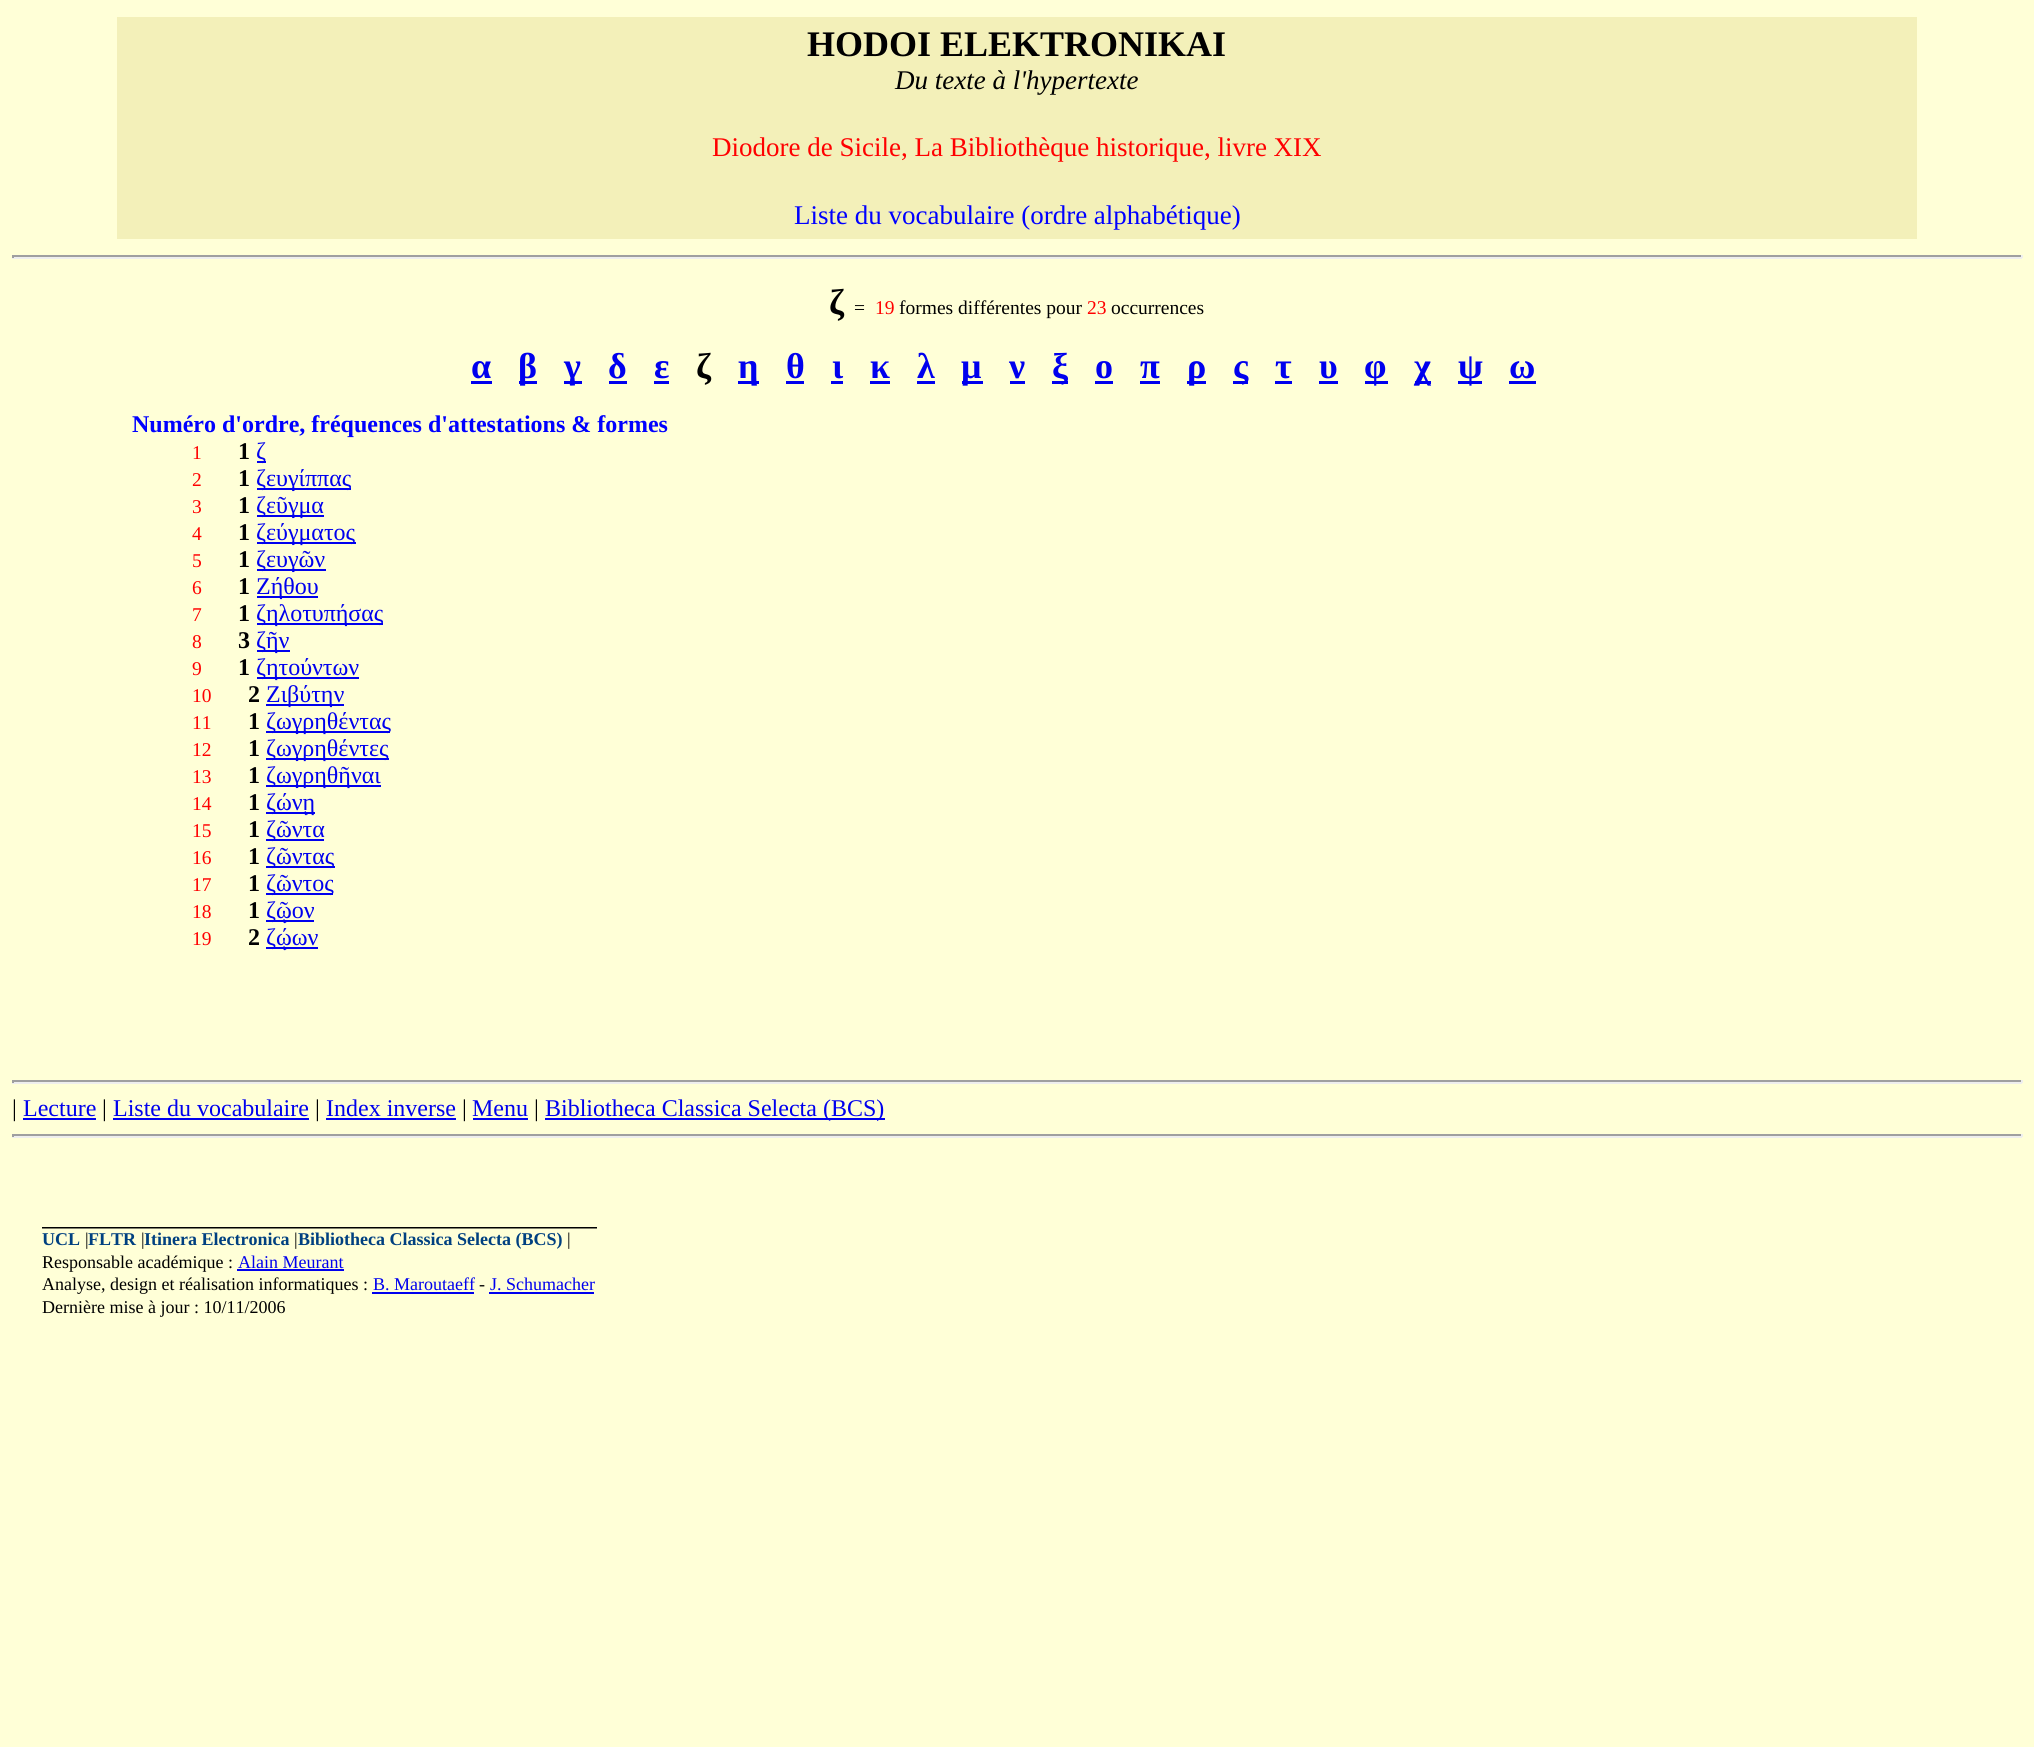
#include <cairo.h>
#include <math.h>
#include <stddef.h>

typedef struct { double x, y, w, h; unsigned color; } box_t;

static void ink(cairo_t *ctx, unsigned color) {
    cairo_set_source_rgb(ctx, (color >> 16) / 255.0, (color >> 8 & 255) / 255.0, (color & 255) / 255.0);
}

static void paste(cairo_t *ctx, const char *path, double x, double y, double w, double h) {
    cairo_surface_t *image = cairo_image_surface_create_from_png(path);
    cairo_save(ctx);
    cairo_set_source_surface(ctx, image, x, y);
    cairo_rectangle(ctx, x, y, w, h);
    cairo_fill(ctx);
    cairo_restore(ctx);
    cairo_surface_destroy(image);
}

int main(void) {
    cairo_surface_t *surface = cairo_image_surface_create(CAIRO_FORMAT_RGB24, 2034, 1747);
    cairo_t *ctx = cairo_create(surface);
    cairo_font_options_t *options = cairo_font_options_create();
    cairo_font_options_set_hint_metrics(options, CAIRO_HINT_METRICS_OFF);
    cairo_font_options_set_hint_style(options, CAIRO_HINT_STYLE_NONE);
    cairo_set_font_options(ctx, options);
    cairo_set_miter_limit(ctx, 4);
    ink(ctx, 0xFFFFD7);
    cairo_paint(ctx);
    ink(ctx, 0xF3F0B9);
    cairo_rectangle(ctx, 117, 17, 1800, 222);
    cairo_fill(ctx);
    cairo_select_font_face(ctx, "Liberation Serif", CAIRO_FONT_SLANT_NORMAL, CAIRO_FONT_WEIGHT_BOLD);
    cairo_set_font_size(ctx, 36);
    ink(ctx, 0x000000);
    cairo_move_to(ctx, 807, 56);
    cairo_show_text(ctx, "HODOI ELEKTRONIKAI");
    cairo_select_font_face(ctx, "Liberation Serif", CAIRO_FONT_SLANT_ITALIC, CAIRO_FONT_WEIGHT_NORMAL);
    cairo_set_font_size(ctx, 27);
    cairo_move_to(ctx, 895, 89);
    cairo_show_text(ctx, "Du texte à l'hypertexte");
    cairo_select_font_face(ctx, "Liberation Serif", CAIRO_FONT_SLANT_NORMAL, CAIRO_FONT_WEIGHT_NORMAL);
    ink(ctx, 0xFF0000);
    cairo_move_to(ctx, 712, 156);
    cairo_show_text(ctx, "Diodore de Sicile, La Bibliothèque historique, livre XIX");
    ink(ctx, 0x0000FF);
    cairo_move_to(ctx, 794, 224);
    cairo_show_text(ctx, "Liste du vocabulaire (ordre alphabétique)");
    {
        static const box_t items[] = {
            {12, 255, 2010, 2, 0x9F9F9F},
            {2021, 255, 2, 3, 0xEEEEEE},
            {12, 257, 2010, 2, 0xEEEEEE},
            {12, 255, 2, 3, 0x9F9F9F},
        };
        for (size_t i = 0; i < sizeof items / sizeof *items; i++) {
            ink(ctx, items[i].color);
            cairo_rectangle(ctx, items[i].x, items[i].y, items[i].w, items[i].h);
            cairo_fill(ctx);
        }
    }
    cairo_select_font_face(ctx, "Liberation Serif", CAIRO_FONT_SLANT_NORMAL, CAIRO_FONT_WEIGHT_BOLD);
    cairo_set_font_size(ctx, 36);
    ink(ctx, 0x000000);
    cairo_move_to(ctx, 829, 314);
    cairo_show_text(ctx, "ζ");
    cairo_select_font_face(ctx, "Liberation Serif", CAIRO_FONT_SLANT_NORMAL, CAIRO_FONT_WEIGHT_NORMAL);
    cairo_set_font_size(ctx, 19.5);
    cairo_move_to(ctx, 854, 314);
    cairo_show_text(ctx, "=");
    ink(ctx, 0xFF0000);
    cairo_move_to(ctx, 875, 314);
    cairo_show_text(ctx, "19");
    ink(ctx, 0x000000);
    cairo_move_to(ctx, 899, 314);
    cairo_show_text(ctx, "formes différentes pour");
    ink(ctx, 0xFF0000);
    cairo_move_to(ctx, 1087, 314);
    cairo_show_text(ctx, "23");
    ink(ctx, 0x000000);
    cairo_move_to(ctx, 1111, 314);
    cairo_show_text(ctx, "occurrences");
    cairo_select_font_face(ctx, "Liberation Serif", CAIRO_FONT_SLANT_NORMAL, CAIRO_FONT_WEIGHT_BOLD);
    cairo_set_font_size(ctx, 36);
    ink(ctx, 0x0000EE);
    cairo_move_to(ctx, 471, 378);
    cairo_show_text(ctx, "α");
    cairo_rectangle(ctx, 471, 381, 21, 3);
    cairo_fill(ctx);
    cairo_rectangle(ctx, 519, 381, 18, 3);
    cairo_fill(ctx);
    cairo_move_to(ctx, 518, 378);
    cairo_show_text(ctx, "β");
    cairo_rectangle(ctx, 564, 381, 18, 3);
    cairo_fill(ctx);
    cairo_move_to(ctx, 564, 378);
    cairo_show_text(ctx, "γ");
    cairo_move_to(ctx, 608, 378);
    cairo_show_text(ctx, "δ");
    cairo_rectangle(ctx, 609, 381, 18, 3);
    cairo_fill(ctx);
    cairo_move_to(ctx, 654, 378);
    cairo_show_text(ctx, "ε");
    cairo_rectangle(ctx, 654, 381, 15, 3);
    cairo_fill(ctx);
    ink(ctx, 0x000000);
    cairo_move_to(ctx, 696, 378);
    cairo_show_text(ctx, "ζ");
    ink(ctx, 0x0000EE);
    cairo_rectangle(ctx, 738, 381, 21, 3);
    cairo_fill(ctx);
    cairo_move_to(ctx, 738, 378);
    cairo_show_text(ctx, "η");
    cairo_move_to(ctx, 786, 378);
    cairo_show_text(ctx, "θ");
    cairo_rectangle(ctx, 786, 381, 18, 3);
    cairo_fill(ctx);
    cairo_move_to(ctx, 832, 378);
    cairo_show_text(ctx, "ι");
    cairo_rectangle(ctx, 831, 381, 12, 3);
    cairo_fill(ctx);
    cairo_move_to(ctx, 870, 378);
    cairo_show_text(ctx, "κ");
    cairo_rectangle(ctx, 870, 381, 20, 3);
    cairo_fill(ctx);
    cairo_move_to(ctx, 917, 378);
    cairo_show_text(ctx, "λ");
    cairo_rectangle(ctx, 917, 381, 18, 3);
    cairo_fill(ctx);
    cairo_rectangle(ctx, 962, 381, 21, 3);
    cairo_fill(ctx);
    cairo_move_to(ctx, 961, 378);
    cairo_show_text(ctx, "μ");
    cairo_move_to(ctx, 1009, 378);
    cairo_show_text(ctx, "ν");
    cairo_rectangle(ctx, 1010, 381, 15, 3);
    cairo_fill(ctx);
    cairo_rectangle(ctx, 1052, 381, 16, 3);
    cairo_fill(ctx);
    cairo_move_to(ctx, 1052, 378);
    cairo_show_text(ctx, "ξ");
    cairo_move_to(ctx, 1095, 378);
    cairo_show_text(ctx, "ο");
    cairo_rectangle(ctx, 1095, 381, 18, 3);
    cairo_fill(ctx);
    cairo_move_to(ctx, 1140, 378);
    cairo_show_text(ctx, "π");
    cairo_rectangle(ctx, 1140, 381, 20, 3);
    cairo_fill(ctx);
    cairo_rectangle(ctx, 1187, 381, 19, 3);
    cairo_fill(ctx);
    cairo_move_to(ctx, 1187, 378);
    cairo_show_text(ctx, "ρ");
    cairo_rectangle(ctx, 1233, 381, 15, 3);
    cairo_fill(ctx);
    cairo_move_to(ctx, 1233, 378);
    cairo_show_text(ctx, "ς");
    cairo_move_to(ctx, 1275, 378);
    cairo_show_text(ctx, "τ");
    cairo_rectangle(ctx, 1275, 381, 17, 3);
    cairo_fill(ctx);
    cairo_move_to(ctx, 1319, 378);
    cairo_show_text(ctx, "υ");
    cairo_rectangle(ctx, 1319, 381, 19, 3);
    cairo_fill(ctx);
    cairo_rectangle(ctx, 1365, 381, 23, 3);
    cairo_fill(ctx);
    cairo_move_to(ctx, 1364, 378);
    cairo_show_text(ctx, "φ");
    cairo_rectangle(ctx, 1415, 381, 16, 3);
    cairo_fill(ctx);
    cairo_move_to(ctx, 1414, 378);
    cairo_show_text(ctx, "χ");
    cairo_rectangle(ctx, 1458, 381, 24, 3);
    cairo_fill(ctx);
    cairo_move_to(ctx, 1458, 378);
    cairo_show_text(ctx, "ψ");
    cairo_move_to(ctx, 1509, 378);
    cairo_show_text(ctx, "ω");
    cairo_rectangle(ctx, 1509, 381, 27, 3);
    cairo_fill(ctx);
    cairo_set_font_size(ctx, 24);
    ink(ctx, 0x0000FF);
    cairo_move_to(ctx, 132, 432);
    cairo_show_text(ctx, "Numéro d'ordre, fréquences d'attestations & formes");
    cairo_select_font_face(ctx, "Liberation Serif", CAIRO_FONT_SLANT_NORMAL, CAIRO_FONT_WEIGHT_NORMAL);
    cairo_set_font_size(ctx, 19.5);
    ink(ctx, 0xFF0000);
    cairo_move_to(ctx, 192, 459);
    cairo_show_text(ctx, "1");
    cairo_select_font_face(ctx, "Liberation Serif", CAIRO_FONT_SLANT_NORMAL, CAIRO_FONT_WEIGHT_BOLD);
    cairo_set_font_size(ctx, 24);
    ink(ctx, 0x000000);
    cairo_move_to(ctx, 238, 459);
    cairo_show_text(ctx, "1");
    ink(ctx, 0x0000EE);
    cairo_rectangle(ctx, 257, 461, 9, 2);
    cairo_fill(ctx);
    cairo_select_font_face(ctx, "Liberation Serif", CAIRO_FONT_SLANT_NORMAL, CAIRO_FONT_WEIGHT_NORMAL);
    cairo_move_to(ctx, 256, 459);
    cairo_show_text(ctx, "ζ");
    cairo_set_font_size(ctx, 19.5);
    ink(ctx, 0xFF0000);
    cairo_move_to(ctx, 192, 486);
    cairo_show_text(ctx, "2");
    cairo_select_font_face(ctx, "Liberation Serif", CAIRO_FONT_SLANT_NORMAL, CAIRO_FONT_WEIGHT_BOLD);
    cairo_set_font_size(ctx, 24);
    ink(ctx, 0x000000);
    cairo_move_to(ctx, 238, 486);
    cairo_show_text(ctx, "1");
    ink(ctx, 0x0000EE);
    cairo_rectangle(ctx, 257, 488, 94, 2);
    cairo_fill(ctx);
    cairo_select_font_face(ctx, "Liberation Serif", CAIRO_FONT_SLANT_NORMAL, CAIRO_FONT_WEIGHT_NORMAL);
    cairo_move_to(ctx, 256, 486);
    cairo_show_text(ctx, "ζευγίππας");
    cairo_set_font_size(ctx, 19.5);
    ink(ctx, 0xFF0000);
    cairo_move_to(ctx, 192, 513);
    cairo_show_text(ctx, "3");
    cairo_select_font_face(ctx, "Liberation Serif", CAIRO_FONT_SLANT_NORMAL, CAIRO_FONT_WEIGHT_BOLD);
    cairo_set_font_size(ctx, 24);
    ink(ctx, 0x000000);
    cairo_move_to(ctx, 238, 513);
    cairo_show_text(ctx, "1");
    ink(ctx, 0x0000EE);
    cairo_rectangle(ctx, 257, 515, 67, 2);
    cairo_fill(ctx);
    cairo_select_font_face(ctx, "Liberation Serif", CAIRO_FONT_SLANT_NORMAL, CAIRO_FONT_WEIGHT_NORMAL);
    cairo_move_to(ctx, 256, 513);
    cairo_show_text(ctx, "ζεῦγμα");
    cairo_set_font_size(ctx, 19.5);
    ink(ctx, 0xFF0000);
    cairo_move_to(ctx, 192, 540);
    cairo_show_text(ctx, "4");
    cairo_select_font_face(ctx, "Liberation Serif", CAIRO_FONT_SLANT_NORMAL, CAIRO_FONT_WEIGHT_BOLD);
    cairo_set_font_size(ctx, 24);
    ink(ctx, 0x000000);
    cairo_move_to(ctx, 238, 540);
    cairo_show_text(ctx, "1");
    ink(ctx, 0x0000EE);
    cairo_rectangle(ctx, 257, 542, 99, 2);
    cairo_fill(ctx);
    cairo_select_font_face(ctx, "Liberation Serif", CAIRO_FONT_SLANT_NORMAL, CAIRO_FONT_WEIGHT_NORMAL);
    cairo_move_to(ctx, 256, 540);
    cairo_show_text(ctx, "ζεύγματος");
    cairo_set_font_size(ctx, 19.5);
    ink(ctx, 0xFF0000);
    cairo_move_to(ctx, 192, 567);
    cairo_show_text(ctx, "5");
    cairo_select_font_face(ctx, "Liberation Serif", CAIRO_FONT_SLANT_NORMAL, CAIRO_FONT_WEIGHT_BOLD);
    cairo_set_font_size(ctx, 24);
    ink(ctx, 0x000000);
    cairo_move_to(ctx, 238, 567);
    cairo_show_text(ctx, "1");
    ink(ctx, 0x0000EE);
    cairo_rectangle(ctx, 257, 569, 69, 2);
    cairo_fill(ctx);
    cairo_select_font_face(ctx, "Liberation Serif", CAIRO_FONT_SLANT_NORMAL, CAIRO_FONT_WEIGHT_NORMAL);
    cairo_move_to(ctx, 256, 567);
    cairo_show_text(ctx, "ζευγῶν");
    cairo_set_font_size(ctx, 19.5);
    ink(ctx, 0xFF0000);
    cairo_move_to(ctx, 192, 594);
    cairo_show_text(ctx, "6");
    cairo_select_font_face(ctx, "Liberation Serif", CAIRO_FONT_SLANT_NORMAL, CAIRO_FONT_WEIGHT_BOLD);
    cairo_set_font_size(ctx, 24);
    ink(ctx, 0x000000);
    cairo_move_to(ctx, 238, 594);
    cairo_show_text(ctx, "1");
    ink(ctx, 0x0000EE);
    cairo_rectangle(ctx, 257, 596, 61, 2);
    cairo_fill(ctx);
    cairo_select_font_face(ctx, "Liberation Serif", CAIRO_FONT_SLANT_NORMAL, CAIRO_FONT_WEIGHT_NORMAL);
    cairo_move_to(ctx, 256, 594);
    cairo_show_text(ctx, "Ζήθου");
    cairo_set_font_size(ctx, 19.5);
    ink(ctx, 0xFF0000);
    cairo_move_to(ctx, 192, 621);
    cairo_show_text(ctx, "7");
    cairo_select_font_face(ctx, "Liberation Serif", CAIRO_FONT_SLANT_NORMAL, CAIRO_FONT_WEIGHT_BOLD);
    cairo_set_font_size(ctx, 24);
    ink(ctx, 0x000000);
    cairo_move_to(ctx, 238, 621);
    cairo_show_text(ctx, "1");
    ink(ctx, 0x0000EE);
    cairo_rectangle(ctx, 257, 623, 126, 2);
    cairo_fill(ctx);
    cairo_select_font_face(ctx, "Liberation Serif", CAIRO_FONT_SLANT_NORMAL, CAIRO_FONT_WEIGHT_NORMAL);
    cairo_move_to(ctx, 256, 621);
    cairo_show_text(ctx, "ζηλοτυπήσας");
    cairo_set_font_size(ctx, 19.5);
    ink(ctx, 0xFF0000);
    cairo_move_to(ctx, 192, 648);
    cairo_show_text(ctx, "8");
    cairo_select_font_face(ctx, "Liberation Serif", CAIRO_FONT_SLANT_NORMAL, CAIRO_FONT_WEIGHT_BOLD);
    cairo_set_font_size(ctx, 24);
    ink(ctx, 0x000000);
    cairo_move_to(ctx, 238, 648);
    cairo_show_text(ctx, "3");
    ink(ctx, 0x0000EE);
    cairo_rectangle(ctx, 257, 650, 33, 2);
    cairo_fill(ctx);
    cairo_select_font_face(ctx, "Liberation Serif", CAIRO_FONT_SLANT_NORMAL, CAIRO_FONT_WEIGHT_NORMAL);
    cairo_move_to(ctx, 256, 648);
    cairo_show_text(ctx, "ζῆν");
    cairo_set_font_size(ctx, 19.5);
    ink(ctx, 0xFF0000);
    cairo_move_to(ctx, 192, 675);
    cairo_show_text(ctx, "9");
    cairo_select_font_face(ctx, "Liberation Serif", CAIRO_FONT_SLANT_NORMAL, CAIRO_FONT_WEIGHT_BOLD);
    cairo_set_font_size(ctx, 24);
    ink(ctx, 0x000000);
    cairo_move_to(ctx, 238, 675);
    cairo_show_text(ctx, "1");
    ink(ctx, 0x0000EE);
    cairo_rectangle(ctx, 257, 677, 102, 2);
    cairo_fill(ctx);
    cairo_select_font_face(ctx, "Liberation Serif", CAIRO_FONT_SLANT_NORMAL, CAIRO_FONT_WEIGHT_NORMAL);
    cairo_move_to(ctx, 256, 675);
    cairo_show_text(ctx, "ζητούντων");
    cairo_set_font_size(ctx, 19.5);
    ink(ctx, 0xFF0000);
    cairo_move_to(ctx, 192, 702);
    cairo_show_text(ctx, "10");
    cairo_select_font_face(ctx, "Liberation Serif", CAIRO_FONT_SLANT_NORMAL, CAIRO_FONT_WEIGHT_BOLD);
    cairo_set_font_size(ctx, 24);
    ink(ctx, 0x000000);
    cairo_move_to(ctx, 248, 702);
    cairo_show_text(ctx, "2");
    ink(ctx, 0x0000EE);
    cairo_rectangle(ctx, 266, 704, 78, 2);
    cairo_fill(ctx);
    cairo_select_font_face(ctx, "Liberation Serif", CAIRO_FONT_SLANT_NORMAL, CAIRO_FONT_WEIGHT_NORMAL);
    cairo_move_to(ctx, 266, 702);
    cairo_show_text(ctx, "Ζιβύτην");
    cairo_set_font_size(ctx, 19.5);
    ink(ctx, 0xFF0000);
    cairo_move_to(ctx, 192, 729);
    cairo_show_text(ctx, "11");
    cairo_select_font_face(ctx, "Liberation Serif", CAIRO_FONT_SLANT_NORMAL, CAIRO_FONT_WEIGHT_BOLD);
    cairo_set_font_size(ctx, 24);
    ink(ctx, 0x000000);
    cairo_move_to(ctx, 248, 729);
    cairo_show_text(ctx, "1");
    ink(ctx, 0x0000EE);
    cairo_rectangle(ctx, 266, 731, 124, 2);
    cairo_fill(ctx);
    cairo_select_font_face(ctx, "Liberation Serif", CAIRO_FONT_SLANT_NORMAL, CAIRO_FONT_WEIGHT_NORMAL);
    cairo_move_to(ctx, 266, 729);
    cairo_show_text(ctx, "ζωγρηθέντας");
    cairo_set_font_size(ctx, 19.5);
    ink(ctx, 0xFF0000);
    cairo_move_to(ctx, 192, 756);
    cairo_show_text(ctx, "12");
    cairo_select_font_face(ctx, "Liberation Serif", CAIRO_FONT_SLANT_NORMAL, CAIRO_FONT_WEIGHT_BOLD);
    cairo_set_font_size(ctx, 24);
    ink(ctx, 0x000000);
    cairo_move_to(ctx, 248, 756);
    cairo_show_text(ctx, "1");
    ink(ctx, 0x0000EE);
    cairo_rectangle(ctx, 266, 758, 123, 2);
    cairo_fill(ctx);
    cairo_select_font_face(ctx, "Liberation Serif", CAIRO_FONT_SLANT_NORMAL, CAIRO_FONT_WEIGHT_NORMAL);
    cairo_move_to(ctx, 266, 756);
    cairo_show_text(ctx, "ζωγρηθέντες");
    cairo_set_font_size(ctx, 19.5);
    ink(ctx, 0xFF0000);
    cairo_move_to(ctx, 192, 783);
    cairo_show_text(ctx, "13");
    cairo_select_font_face(ctx, "Liberation Serif", CAIRO_FONT_SLANT_NORMAL, CAIRO_FONT_WEIGHT_BOLD);
    cairo_set_font_size(ctx, 24);
    ink(ctx, 0x000000);
    cairo_move_to(ctx, 248, 783);
    cairo_show_text(ctx, "1");
    ink(ctx, 0x0000EE);
    cairo_rectangle(ctx, 266, 785, 115, 2);
    cairo_fill(ctx);
    cairo_select_font_face(ctx, "Liberation Serif", CAIRO_FONT_SLANT_NORMAL, CAIRO_FONT_WEIGHT_NORMAL);
    cairo_move_to(ctx, 266, 783);
    cairo_show_text(ctx, "ζωγρηθῆναι");
    cairo_set_font_size(ctx, 19.5);
    ink(ctx, 0xFF0000);
    cairo_move_to(ctx, 192, 810);
    cairo_show_text(ctx, "14");
    cairo_select_font_face(ctx, "Liberation Serif", CAIRO_FONT_SLANT_NORMAL, CAIRO_FONT_WEIGHT_BOLD);
    cairo_set_font_size(ctx, 24);
    ink(ctx, 0x000000);
    cairo_move_to(ctx, 248, 810);
    cairo_show_text(ctx, "1");
    ink(ctx, 0x0000EE);
    cairo_rectangle(ctx, 266, 812, 49, 2);
    cairo_fill(ctx);
    cairo_select_font_face(ctx, "Liberation Serif", CAIRO_FONT_SLANT_NORMAL, CAIRO_FONT_WEIGHT_NORMAL);
    cairo_move_to(ctx, 266, 810);
    cairo_show_text(ctx, "ζώνῃ");
    cairo_set_font_size(ctx, 19.5);
    ink(ctx, 0xFF0000);
    cairo_move_to(ctx, 192, 837);
    cairo_show_text(ctx, "15");
    cairo_select_font_face(ctx, "Liberation Serif", CAIRO_FONT_SLANT_NORMAL, CAIRO_FONT_WEIGHT_BOLD);
    cairo_set_font_size(ctx, 24);
    ink(ctx, 0x000000);
    cairo_move_to(ctx, 248, 837);
    cairo_show_text(ctx, "1");
    ink(ctx, 0x0000EE);
    cairo_rectangle(ctx, 266, 839, 58, 2);
    cairo_fill(ctx);
    cairo_select_font_face(ctx, "Liberation Serif", CAIRO_FONT_SLANT_NORMAL, CAIRO_FONT_WEIGHT_NORMAL);
    cairo_move_to(ctx, 266, 837);
    cairo_show_text(ctx, "ζῶντα");
    cairo_set_font_size(ctx, 19.5);
    ink(ctx, 0xFF0000);
    cairo_move_to(ctx, 192, 864);
    cairo_show_text(ctx, "16");
    cairo_select_font_face(ctx, "Liberation Serif", CAIRO_FONT_SLANT_NORMAL, CAIRO_FONT_WEIGHT_BOLD);
    cairo_set_font_size(ctx, 24);
    ink(ctx, 0x000000);
    cairo_move_to(ctx, 248, 864);
    cairo_show_text(ctx, "1");
    ink(ctx, 0x0000EE);
    cairo_rectangle(ctx, 266, 866, 69, 2);
    cairo_fill(ctx);
    cairo_select_font_face(ctx, "Liberation Serif", CAIRO_FONT_SLANT_NORMAL, CAIRO_FONT_WEIGHT_NORMAL);
    cairo_move_to(ctx, 266, 864);
    cairo_show_text(ctx, "ζῶντας");
    cairo_set_font_size(ctx, 19.5);
    ink(ctx, 0xFF0000);
    cairo_move_to(ctx, 192, 891);
    cairo_show_text(ctx, "17");
    cairo_select_font_face(ctx, "Liberation Serif", CAIRO_FONT_SLANT_NORMAL, CAIRO_FONT_WEIGHT_BOLD);
    cairo_set_font_size(ctx, 24);
    ink(ctx, 0x000000);
    cairo_move_to(ctx, 248, 891);
    cairo_show_text(ctx, "1");
    ink(ctx, 0x0000EE);
    cairo_rectangle(ctx, 266, 893, 67, 2);
    cairo_fill(ctx);
    cairo_select_font_face(ctx, "Liberation Serif", CAIRO_FONT_SLANT_NORMAL, CAIRO_FONT_WEIGHT_NORMAL);
    cairo_move_to(ctx, 266, 891);
    cairo_show_text(ctx, "ζῶντος");
    cairo_set_font_size(ctx, 19.5);
    ink(ctx, 0xFF0000);
    cairo_move_to(ctx, 192, 918);
    cairo_show_text(ctx, "18");
    cairo_select_font_face(ctx, "Liberation Serif", CAIRO_FONT_SLANT_NORMAL, CAIRO_FONT_WEIGHT_BOLD);
    cairo_set_font_size(ctx, 24);
    ink(ctx, 0x000000);
    cairo_move_to(ctx, 248, 918);
    cairo_show_text(ctx, "1");
    ink(ctx, 0x0000EE);
    cairo_rectangle(ctx, 266, 920, 48, 2);
    cairo_fill(ctx);
    cairo_select_font_face(ctx, "Liberation Serif", CAIRO_FONT_SLANT_NORMAL, CAIRO_FONT_WEIGHT_NORMAL);
    cairo_move_to(ctx, 266, 918);
    cairo_show_text(ctx, "ζῷον");
    cairo_set_font_size(ctx, 19.5);
    ink(ctx, 0xFF0000);
    cairo_move_to(ctx, 192, 945);
    cairo_show_text(ctx, "19");
    cairo_select_font_face(ctx, "Liberation Serif", CAIRO_FONT_SLANT_NORMAL, CAIRO_FONT_WEIGHT_BOLD);
    cairo_set_font_size(ctx, 24);
    ink(ctx, 0x000000);
    cairo_move_to(ctx, 248, 945);
    cairo_show_text(ctx, "2");
    ink(ctx, 0x0000EE);
    cairo_rectangle(ctx, 266, 947, 52, 2);
    cairo_fill(ctx);
    cairo_select_font_face(ctx, "Liberation Serif", CAIRO_FONT_SLANT_NORMAL, CAIRO_FONT_WEIGHT_NORMAL);
    cairo_move_to(ctx, 266, 945);
    cairo_show_text(ctx, "ζῴων");
    {
        static const box_t items[] = {
            {12, 1080, 2010, 2, 0x9F9F9F},
            {2021, 1080, 2, 3, 0xEEEEEE},
            {12, 1082, 2010, 2, 0xEEEEEE},
            {12, 1080, 2, 3, 0x9F9F9F},
        };
        for (size_t i = 0; i < sizeof items / sizeof *items; i++) {
            ink(ctx, items[i].color);
            cairo_rectangle(ctx, items[i].x, items[i].y, items[i].w, items[i].h);
            cairo_fill(ctx);
        }
    }
    ink(ctx, 0x000000);
    cairo_move_to(ctx, 12, 1116);
    cairo_show_text(ctx, "|");
    ink(ctx, 0x0000EE);
    cairo_move_to(ctx, 23, 1116);
    cairo_show_text(ctx, "Lecture");
    cairo_rectangle(ctx, 23, 1118, 73, 2);
    cairo_fill(ctx);
    ink(ctx, 0x000000);
    cairo_move_to(ctx, 102, 1116);
    cairo_show_text(ctx, "|");
    ink(ctx, 0x0000EE);
    cairo_move_to(ctx, 113, 1116);
    cairo_show_text(ctx, "Liste du vocabulaire");
    cairo_rectangle(ctx, 113, 1118, 196, 2);
    cairo_fill(ctx);
    ink(ctx, 0x000000);
    cairo_move_to(ctx, 315, 1116);
    cairo_show_text(ctx, "|");
    ink(ctx, 0x0000EE);
    cairo_move_to(ctx, 326, 1116);
    cairo_show_text(ctx, "Index inverse");
    cairo_rectangle(ctx, 326, 1118, 130, 2);
    cairo_fill(ctx);
    ink(ctx, 0x000000);
    cairo_move_to(ctx, 462, 1116);
    cairo_show_text(ctx, "|");
    ink(ctx, 0x0000EE);
    cairo_move_to(ctx, 472, 1116);
    cairo_show_text(ctx, "Menu");
    cairo_rectangle(ctx, 473, 1118, 55, 2);
    cairo_fill(ctx);
    ink(ctx, 0x000000);
    cairo_move_to(ctx, 534, 1116);
    cairo_show_text(ctx, "|");
    ink(ctx, 0x0000EE);
    cairo_rectangle(ctx, 545, 1118, 340, 2);
    cairo_fill(ctx);
    cairo_move_to(ctx, 545, 1116);
    cairo_show_text(ctx, "Bibliotheca Classica Selecta (BCS)");
    {
        static const box_t items[] = {
            {12, 1134, 2010, 2, 0x9F9F9F},
            {2021, 1134, 2, 3, 0xEEEEEE},
            {12, 1136, 2010, 2, 0xEEEEEE},
            {12, 1134, 2, 3, 0x9F9F9F},
        };
        for (size_t i = 0; i < sizeof items / sizeof *items; i++) {
            ink(ctx, items[i].color);
            cairo_rectangle(ctx, items[i].x, items[i].y, items[i].w, items[i].h);
            cairo_fill(ctx);
        }
    }
    paste(ctx, "media/1.png", 42, 1227, 555, 2);
    cairo_select_font_face(ctx, "Liberation Serif", CAIRO_FONT_SLANT_NORMAL, CAIRO_FONT_WEIGHT_BOLD);
    cairo_set_font_size(ctx, 18);
    ink(ctx, 0x004080);
    cairo_move_to(ctx, 42, 1245);
    cairo_show_text(ctx, "UCL");
    cairo_select_font_face(ctx, "Liberation Serif", CAIRO_FONT_SLANT_NORMAL, CAIRO_FONT_WEIGHT_NORMAL);
    ink(ctx, 0x000000);
    cairo_move_to(ctx, 85, 1245);
    cairo_show_text(ctx, "|");
    cairo_select_font_face(ctx, "Liberation Serif", CAIRO_FONT_SLANT_NORMAL, CAIRO_FONT_WEIGHT_BOLD);
    ink(ctx, 0x004080);
    cairo_move_to(ctx, 88, 1245);
    cairo_show_text(ctx, "FLTR");
    cairo_select_font_face(ctx, "Liberation Serif", CAIRO_FONT_SLANT_NORMAL, CAIRO_FONT_WEIGHT_NORMAL);
    ink(ctx, 0x000000);
    cairo_move_to(ctx, 141, 1245);
    cairo_show_text(ctx, "|");
    cairo_select_font_face(ctx, "Liberation Serif", CAIRO_FONT_SLANT_NORMAL, CAIRO_FONT_WEIGHT_BOLD);
    ink(ctx, 0x004080);
    cairo_move_to(ctx, 144, 1245);
    cairo_show_text(ctx, "Itinera Electronica");
    cairo_select_font_face(ctx, "Liberation Serif", CAIRO_FONT_SLANT_NORMAL, CAIRO_FONT_WEIGHT_NORMAL);
    ink(ctx, 0x000000);
    cairo_move_to(ctx, 294, 1245);
    cairo_show_text(ctx, "|");
    cairo_select_font_face(ctx, "Liberation Serif", CAIRO_FONT_SLANT_NORMAL, CAIRO_FONT_WEIGHT_BOLD);
    ink(ctx, 0x004080);
    cairo_move_to(ctx, 298, 1245);
    cairo_show_text(ctx, "Bibliotheca Classica Selecta (BCS)");
    cairo_select_font_face(ctx, "Liberation Serif", CAIRO_FONT_SLANT_NORMAL, CAIRO_FONT_WEIGHT_NORMAL);
    ink(ctx, 0x000000);
    cairo_move_to(ctx, 567, 1245);
    cairo_show_text(ctx, "|");
    cairo_move_to(ctx, 42, 1268);
    cairo_show_text(ctx, "Responsable académique :");
    ink(ctx, 0x0000EE);
    cairo_move_to(ctx, 238, 1268);
    cairo_show_text(ctx, "Alain Meurant");
    cairo_rectangle(ctx, 237, 1269, 107, 2);
    cairo_fill(ctx);
    ink(ctx, 0x000000);
    cairo_move_to(ctx, 42, 1290);
    cairo_show_text(ctx, "Analyse, design et réalisation informatiques :");
    ink(ctx, 0x0000EE);
    cairo_move_to(ctx, 373, 1290);
    cairo_show_text(ctx, "B. Maroutaeff");
    cairo_rectangle(ctx, 372, 1292, 102, 2);
    cairo_fill(ctx);
    ink(ctx, 0x000000);
    cairo_move_to(ctx, 479, 1290);
    cairo_show_text(ctx, "-");
    ink(ctx, 0x0000EE);
    cairo_rectangle(ctx, 489, 1292, 105, 2);
    cairo_fill(ctx);
    cairo_move_to(ctx, 490, 1290);
    cairo_show_text(ctx, "J. Schumacher");
    ink(ctx, 0x000000);
    cairo_move_to(ctx, 42, 1313);
    cairo_show_text(ctx, "Dernière mise à jour : 10/11/2006");
    cairo_surface_write_to_png(surface, "image.png");
    cairo_font_options_destroy(options);
    cairo_destroy(ctx);
    cairo_surface_destroy(surface);
    return 0;
}
